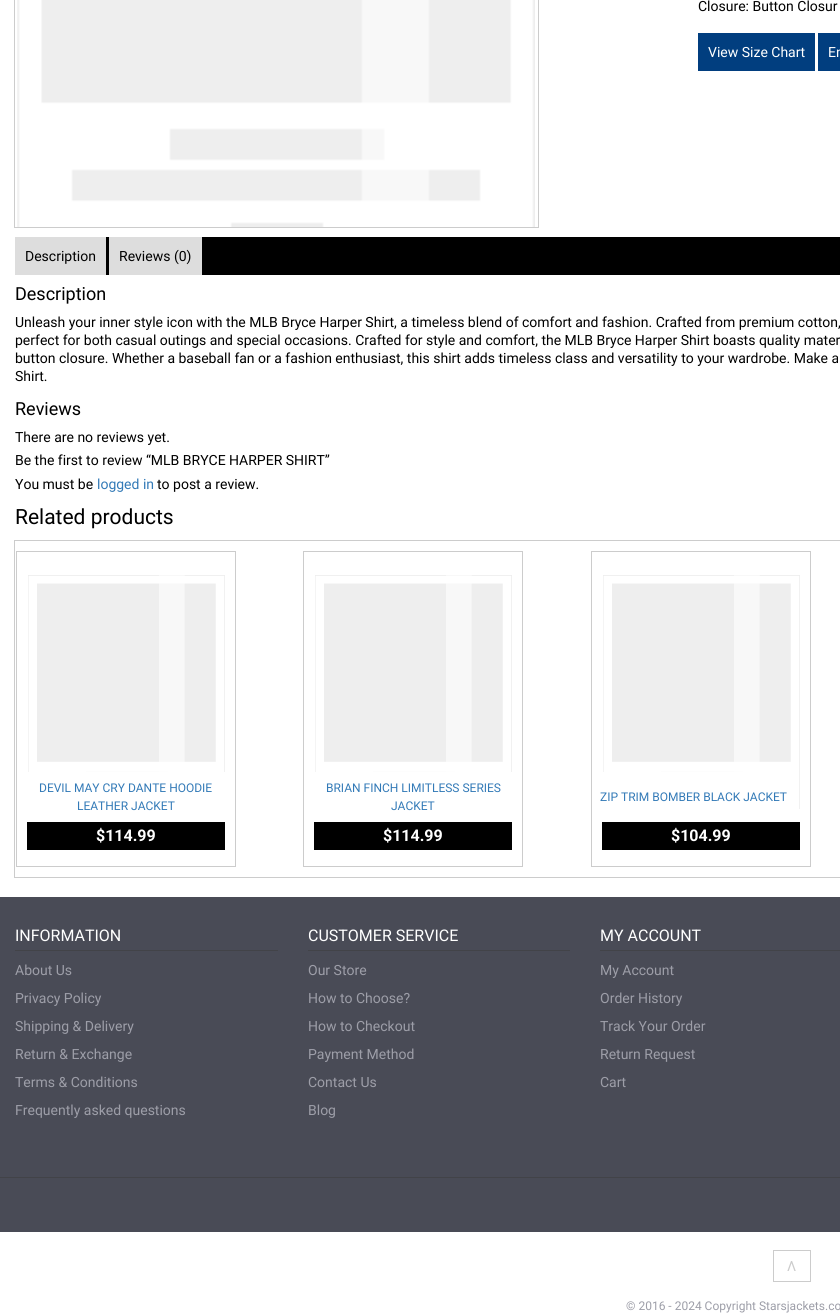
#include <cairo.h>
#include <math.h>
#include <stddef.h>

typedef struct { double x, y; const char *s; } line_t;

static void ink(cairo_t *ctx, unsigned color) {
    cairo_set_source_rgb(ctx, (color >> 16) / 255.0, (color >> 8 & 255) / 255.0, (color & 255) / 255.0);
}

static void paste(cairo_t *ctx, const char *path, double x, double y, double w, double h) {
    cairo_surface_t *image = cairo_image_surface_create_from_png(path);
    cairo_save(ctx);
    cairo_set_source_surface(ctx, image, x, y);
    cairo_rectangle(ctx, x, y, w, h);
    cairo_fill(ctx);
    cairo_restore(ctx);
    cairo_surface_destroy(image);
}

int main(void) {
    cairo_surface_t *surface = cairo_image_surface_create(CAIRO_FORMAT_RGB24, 840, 1315);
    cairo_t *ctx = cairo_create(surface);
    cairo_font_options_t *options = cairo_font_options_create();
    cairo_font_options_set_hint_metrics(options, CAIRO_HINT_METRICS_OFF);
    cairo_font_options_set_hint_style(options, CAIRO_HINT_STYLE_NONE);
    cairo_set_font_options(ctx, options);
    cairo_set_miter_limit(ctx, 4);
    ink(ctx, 0xFFFFFF);
    cairo_paint(ctx);
    cairo_rectangle(ctx, 14.5, -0.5, 524, 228);
    ink(ctx, 0xCCCCCC);
    cairo_set_line_width(ctx, 1);
    cairo_stroke(ctx);
    paste(ctx, "media/1.png", 17, 0, 518, 227);
    cairo_select_font_face(ctx, "Roboto", CAIRO_FONT_SLANT_NORMAL, CAIRO_FONT_WEIGHT_NORMAL);
    cairo_set_font_size(ctx, 14);
    ink(ctx, 0x000000);
    cairo_move_to(ctx, 698, 11);
    cairo_show_text(ctx, "Closure: Button Closur");
    ink(ctx, 0x013E7F);
    cairo_rectangle(ctx, 698, 33, 117, 38);
    cairo_fill(ctx);
    ink(ctx, 0xFFFFFF);
    cairo_move_to(ctx, 708, 57);
    cairo_show_text(ctx, "View Size Chart");
    ink(ctx, 0x013E7F);
    cairo_rectangle(ctx, 818, 33, 22, 38);
    cairo_fill(ctx);
    ink(ctx, 0xFFFFFF);
    cairo_move_to(ctx, 828, 57);
    cairo_show_text(ctx, "En");
    ink(ctx, 0x000000);
    cairo_rectangle(ctx, 106, 237, 734, 38);
    cairo_fill(ctx);
    ink(ctx, 0xDDDDDD);
    cairo_rectangle(ctx, 15, 237, 91, 38);
    cairo_fill(ctx);
    ink(ctx, 0x000000);
    cairo_move_to(ctx, 25, 261);
    cairo_show_text(ctx, "Description");
    ink(ctx, 0xDDDDDD);
    cairo_rectangle(ctx, 109, 237, 93, 38);
    cairo_fill(ctx);
    ink(ctx, 0x000000);
    cairo_move_to(ctx, 119, 261);
    cairo_show_text(ctx, "Reviews (0)");
    cairo_set_font_size(ctx, 18);
    cairo_move_to(ctx, 15, 300);
    cairo_show_text(ctx, "Description");
    cairo_set_font_size(ctx, 14);
    {
        static const line_t items[] = {
            {15, 327, "Unleash your inner style icon with the MLB Bryce Harper Shirt, a timeless blend of comfort and fashion. Crafted from premium cotton,"},
            {15, 345, "perfect for both casual outings and special occasions. Crafted for style and comfort, the MLB Bryce Harper Shirt boasts quality mater"},
            {15, 363, "button closure. Whether a baseball fan or a fashion enthusiast, this shirt adds timeless class and versatility to your wardrobe. Make a"},
            {15, 381, "Shirt."},
        };
        for (size_t i = 0; i < sizeof items / sizeof *items; i++) {
            cairo_move_to(ctx, items[i].x, items[i].y);
            cairo_show_text(ctx, items[i].s);
        }
    }
    cairo_set_font_size(ctx, 18);
    cairo_move_to(ctx, 15, 415);
    cairo_show_text(ctx, "Reviews");
    cairo_set_font_size(ctx, 14);
    {
        static const line_t items[] = {
            {15, 442, "There are no reviews yet."},
            {15, 465, "Be the first to review “MLB BRYCE HARPER SHIRT”"},
            {15, 489, "You must be"},
        };
        for (size_t i = 0; i < sizeof items / sizeof *items; i++) {
            cairo_move_to(ctx, items[i].x, items[i].y);
            cairo_show_text(ctx, items[i].s);
        }
    }
    ink(ctx, 0x337AB7);
    cairo_move_to(ctx, 97, 489);
    cairo_show_text(ctx, "logged in");
    ink(ctx, 0x000000);
    cairo_move_to(ctx, 157, 489);
    cairo_show_text(ctx, "to post a review.");
    cairo_set_font_size(ctx, 21);
    cairo_move_to(ctx, 15, 524);
    cairo_show_text(ctx, "Related products");
    cairo_rectangle(ctx, 14.5, 540.5, 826, 337);
    ink(ctx, 0xCCCCCC);
    cairo_stroke(ctx);
    cairo_rectangle(ctx, 16.5, 551.5, 219, 315);
    cairo_stroke(ctx);
    paste(ctx, "media/2.png", 28, 575, 197, 197);
    cairo_set_font_size(ctx, 12);
    ink(ctx, 0x337AB7);
    cairo_move_to(ctx, 39, 792);
    cairo_show_text(ctx, "DEVIL MAY CRY DANTE HOODIE");
    cairo_move_to(ctx, 77, 810);
    cairo_show_text(ctx, "LEATHER JACKET");
    ink(ctx, 0x000000);
    cairo_rectangle(ctx, 27, 822, 198, 28);
    cairo_fill(ctx);
    cairo_select_font_face(ctx, "Roboto", CAIRO_FONT_SLANT_NORMAL, CAIRO_FONT_WEIGHT_BOLD);
    cairo_set_font_size(ctx, 16);
    ink(ctx, 0xFFFFFF);
    cairo_move_to(ctx, 96, 841);
    cairo_show_text(ctx, "$114.99");
    cairo_rectangle(ctx, 303.5, 551.5, 219, 315);
    ink(ctx, 0xCCCCCC);
    cairo_stroke(ctx);
    paste(ctx, "media/2.png", 315, 575, 197, 197);
    cairo_select_font_face(ctx, "Roboto", CAIRO_FONT_SLANT_NORMAL, CAIRO_FONT_WEIGHT_NORMAL);
    cairo_set_font_size(ctx, 12);
    ink(ctx, 0x337AB7);
    cairo_move_to(ctx, 326, 792);
    cairo_show_text(ctx, "BRIAN FINCH LIMITLESS SERIES");
    cairo_move_to(ctx, 391, 810);
    cairo_show_text(ctx, "JACKET");
    ink(ctx, 0x000000);
    cairo_rectangle(ctx, 314, 822, 198, 28);
    cairo_fill(ctx);
    cairo_select_font_face(ctx, "Roboto", CAIRO_FONT_SLANT_NORMAL, CAIRO_FONT_WEIGHT_BOLD);
    cairo_set_font_size(ctx, 16);
    ink(ctx, 0xFFFFFF);
    cairo_move_to(ctx, 383, 841);
    cairo_show_text(ctx, "$114.99");
    cairo_rectangle(ctx, 591.5, 551.5, 219, 315);
    ink(ctx, 0xCCCCCC);
    cairo_stroke(ctx);
    paste(ctx, "media/3.png", 603, 575, 197, 234);
    ink(ctx, 0xFFFFFF);
    cairo_rectangle(ctx, 603, 772, 176, 37);
    cairo_fill(ctx);
    cairo_select_font_face(ctx, "Roboto", CAIRO_FONT_SLANT_NORMAL, CAIRO_FONT_WEIGHT_NORMAL);
    cairo_set_font_size(ctx, 12);
    ink(ctx, 0x337AB7);
    cairo_move_to(ctx, 600, 801);
    cairo_show_text(ctx, "ZIP TRIM BOMBER BLACK JACKET");
    ink(ctx, 0x000000);
    cairo_rectangle(ctx, 602, 822, 198, 28);
    cairo_fill(ctx);
    cairo_select_font_face(ctx, "Roboto", CAIRO_FONT_SLANT_NORMAL, CAIRO_FONT_WEIGHT_BOLD);
    cairo_set_font_size(ctx, 16);
    ink(ctx, 0xFFFFFF);
    cairo_move_to(ctx, 671, 841);
    cairo_show_text(ctx, "$104.99");
    ink(ctx, 0x494B56);
    cairo_rectangle(ctx, 0, 897, 840, 280);
    cairo_fill(ctx);
    ink(ctx, 0x424348);
    cairo_rectangle(ctx, 15, 950, 263, 1);
    cairo_fill(ctx);
    cairo_select_font_face(ctx, "Roboto", CAIRO_FONT_SLANT_NORMAL, CAIRO_FONT_WEIGHT_NORMAL);
    ink(ctx, 0xFFFFFF);
    cairo_move_to(ctx, 15, 941);
    cairo_show_text(ctx, "INFORMATION");
    cairo_set_font_size(ctx, 14);
    ink(ctx, 0x9D9EA8);
    {
        static const line_t items[] = {
            {15, 975, "About Us"},
            {15, 1003, "Privacy Policy"},
            {15, 1031, "Shipping & Delivery"},
            {15, 1059, "Return & Exchange"},
            {15, 1087, "Terms & Conditions"},
            {15, 1115, "Frequently asked questions"},
        };
        for (size_t i = 0; i < sizeof items / sizeof *items; i++) {
            cairo_move_to(ctx, items[i].x, items[i].y);
            cairo_show_text(ctx, items[i].s);
        }
    }
    ink(ctx, 0x424348);
    cairo_rectangle(ctx, 308, 950, 262, 1);
    cairo_fill(ctx);
    cairo_set_font_size(ctx, 16);
    ink(ctx, 0xFFFFFF);
    cairo_move_to(ctx, 308, 941);
    cairo_show_text(ctx, "CUSTOMER SERVICE");
    cairo_set_font_size(ctx, 14);
    ink(ctx, 0x9D9EA8);
    {
        static const line_t items[] = {
            {308, 975, "Our Store"},
            {308, 1003, "How to Choose?"},
            {308, 1031, "How to Checkout"},
            {308, 1059, "Payment Method"},
            {308, 1087, "Contact Us"},
            {308, 1115, "Blog"},
        };
        for (size_t i = 0; i < sizeof items / sizeof *items; i++) {
            cairo_move_to(ctx, items[i].x, items[i].y);
            cairo_show_text(ctx, items[i].s);
        }
    }
    ink(ctx, 0x424348);
    cairo_rectangle(ctx, 600, 950, 240, 1);
    cairo_fill(ctx);
    cairo_set_font_size(ctx, 16);
    ink(ctx, 0xFFFFFF);
    cairo_move_to(ctx, 600, 941);
    cairo_show_text(ctx, "MY ACCOUNT");
    cairo_set_font_size(ctx, 14);
    ink(ctx, 0x9D9EA8);
    {
        static const line_t items[] = {
            {600, 975, "My Account"},
            {600, 1003, "Order History"},
            {600, 1031, "Track Your Order"},
            {600, 1059, "Return Request"},
            {600, 1087, "Cart"},
        };
        for (size_t i = 0; i < sizeof items / sizeof *items; i++) {
            cairo_move_to(ctx, items[i].x, items[i].y);
            cairo_show_text(ctx, items[i].s);
        }
    }
    cairo_rectangle(ctx, 773.5, 1250.5, 37, 31);
    ink(ctx, 0xCCCCCC);
    cairo_stroke(ctx);
    cairo_move_to(ctx, 787, 1271);
    cairo_show_text(ctx, "Λ");
    ink(ctx, 0x494B56);
    cairo_rectangle(ctx, 0, 1178, 840, 54);
    cairo_fill(ctx);
    ink(ctx, 0x424348);
    cairo_rectangle(ctx, 0, 1177, 840, 1);
    cairo_fill(ctx);
    cairo_set_font_size(ctx, 12);
    ink(ctx, 0x9D9EA8);
    cairo_move_to(ctx, 626, 1310);
    cairo_show_text(ctx, "© 2016 - 2024 Copyright Starsjackets.co");
    cairo_surface_write_to_png(surface, "image.png");
    cairo_font_options_destroy(options);
    cairo_destroy(ctx);
    cairo_surface_destroy(surface);
    return 0;
}
